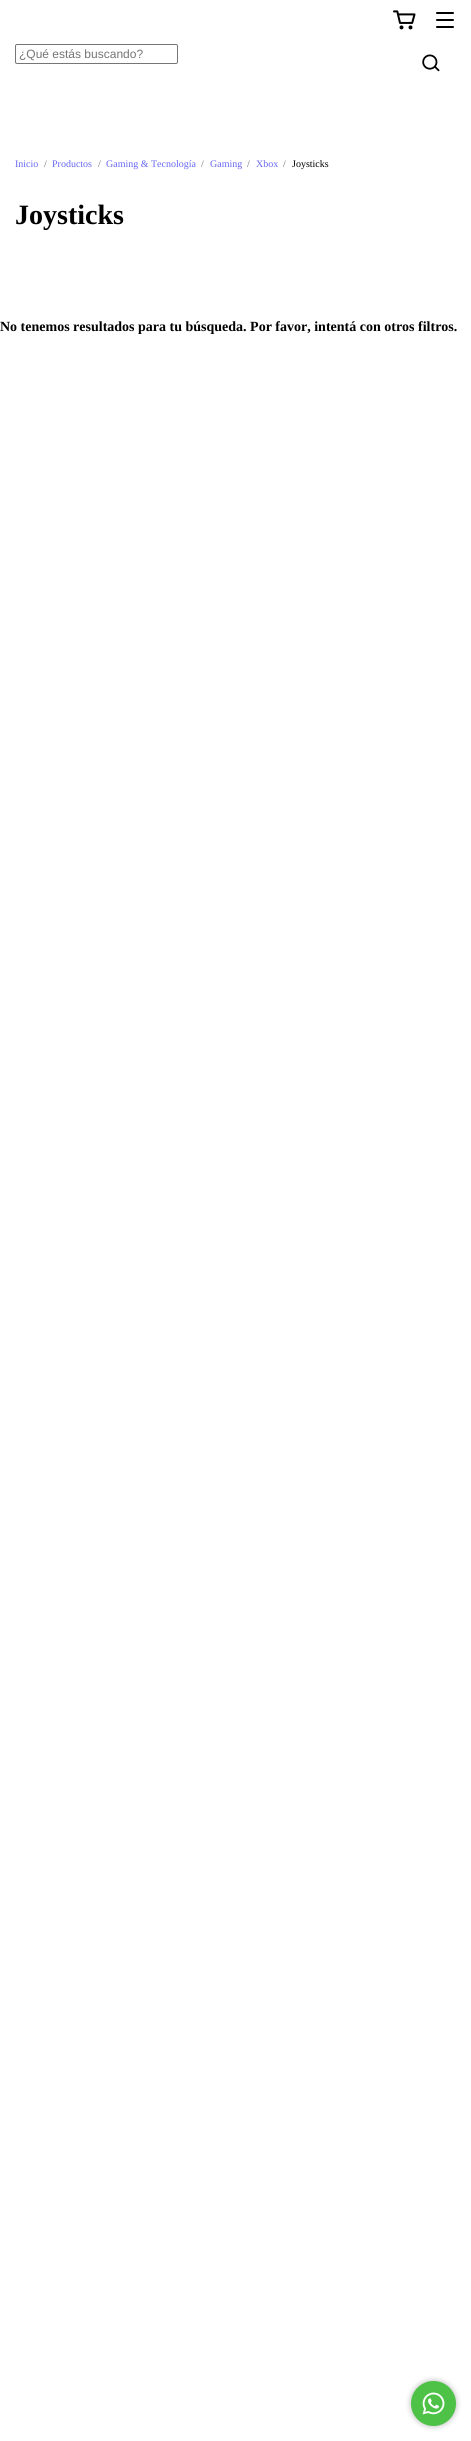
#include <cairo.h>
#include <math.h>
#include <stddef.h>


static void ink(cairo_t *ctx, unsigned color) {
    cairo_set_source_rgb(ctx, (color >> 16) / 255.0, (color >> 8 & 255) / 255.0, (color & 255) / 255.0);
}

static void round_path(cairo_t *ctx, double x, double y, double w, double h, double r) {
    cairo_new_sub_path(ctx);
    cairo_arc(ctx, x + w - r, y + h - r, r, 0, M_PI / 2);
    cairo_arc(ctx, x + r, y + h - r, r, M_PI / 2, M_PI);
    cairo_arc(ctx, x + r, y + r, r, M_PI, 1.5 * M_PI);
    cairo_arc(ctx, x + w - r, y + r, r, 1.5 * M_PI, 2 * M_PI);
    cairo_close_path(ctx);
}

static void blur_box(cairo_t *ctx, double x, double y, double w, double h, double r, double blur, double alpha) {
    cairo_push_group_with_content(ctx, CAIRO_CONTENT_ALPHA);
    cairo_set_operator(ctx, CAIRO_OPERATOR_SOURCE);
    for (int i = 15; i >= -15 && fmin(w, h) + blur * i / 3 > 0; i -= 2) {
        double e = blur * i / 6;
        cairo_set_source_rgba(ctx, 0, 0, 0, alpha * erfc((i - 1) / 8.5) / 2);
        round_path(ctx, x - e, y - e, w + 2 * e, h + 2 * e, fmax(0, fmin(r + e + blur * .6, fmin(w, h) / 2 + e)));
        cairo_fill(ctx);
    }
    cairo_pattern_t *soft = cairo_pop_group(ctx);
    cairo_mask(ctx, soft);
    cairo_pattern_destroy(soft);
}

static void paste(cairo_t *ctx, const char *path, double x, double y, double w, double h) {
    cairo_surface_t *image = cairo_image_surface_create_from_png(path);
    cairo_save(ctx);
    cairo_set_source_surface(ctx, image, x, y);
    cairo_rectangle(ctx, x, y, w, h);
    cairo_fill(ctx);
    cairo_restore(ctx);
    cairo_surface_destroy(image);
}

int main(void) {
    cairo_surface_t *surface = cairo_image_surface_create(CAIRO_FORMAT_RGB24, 471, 2441);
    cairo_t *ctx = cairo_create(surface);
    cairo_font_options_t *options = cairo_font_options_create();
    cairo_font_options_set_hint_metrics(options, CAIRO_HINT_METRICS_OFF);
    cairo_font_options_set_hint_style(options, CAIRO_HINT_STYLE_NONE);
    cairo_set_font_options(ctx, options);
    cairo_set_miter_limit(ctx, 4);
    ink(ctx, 0xFFFFFF);
    cairo_paint(ctx);
    paste(ctx, "media/1.png", 393, 10, 23, 20);
    paste(ctx, "media/2.png", 436, 12, 18, 16);
    round_path(ctx, 15.5, 44.5, 162, 19, 1.5);
    ink(ctx, 0x767676);
    cairo_set_line_width(ctx, 1);
    cairo_stroke(ctx);
    cairo_select_font_face(ctx, "Liberation Sans", CAIRO_FONT_SLANT_NORMAL, CAIRO_FONT_WEIGHT_NORMAL);
    cairo_set_font_size(ctx, 12);
    ink(ctx, 0x757575);
    cairo_move_to(ctx, 19, 58);
    cairo_show_text(ctx, "¿Qué estás buscando?");
    paste(ctx, "media/3.png", 422, 54, 18, 18);
    cairo_select_font_face(ctx, "Liberation Serif", CAIRO_FONT_SLANT_NORMAL, CAIRO_FONT_WEIGHT_NORMAL);
    cairo_set_font_size(ctx, 10);
    ink(ctx, 0x6666F5);
    cairo_move_to(ctx, 15, 167);
    cairo_show_text(ctx, "Inicio");
    ink(ctx, 0x666666);
    cairo_move_to(ctx, 44, 167);
    cairo_show_text(ctx, "/");
    ink(ctx, 0x6666F5);
    cairo_move_to(ctx, 52, 167);
    cairo_show_text(ctx, "Productos");
    ink(ctx, 0x666666);
    cairo_move_to(ctx, 98, 167);
    cairo_show_text(ctx, "/");
    ink(ctx, 0x6666F5);
    cairo_move_to(ctx, 106, 167);
    cairo_show_text(ctx, "Gaming & Tecnología");
    ink(ctx, 0x666666);
    cairo_move_to(ctx, 201, 167);
    cairo_show_text(ctx, "/");
    ink(ctx, 0x6666F5);
    cairo_move_to(ctx, 210, 167);
    cairo_show_text(ctx, "Gaming");
    ink(ctx, 0x666666);
    cairo_move_to(ctx, 247, 167);
    cairo_show_text(ctx, "/");
    ink(ctx, 0x6666F5);
    cairo_move_to(ctx, 256, 167);
    cairo_show_text(ctx, "Xbox");
    ink(ctx, 0x666666);
    cairo_move_to(ctx, 283, 167);
    cairo_show_text(ctx, "/");
    ink(ctx, 0x000000);
    cairo_move_to(ctx, 292, 167);
    cairo_show_text(ctx, "Joysticks");
    cairo_select_font_face(ctx, "Liberation Serif", CAIRO_FONT_SLANT_NORMAL, CAIRO_FONT_WEIGHT_BOLD);
    cairo_set_font_size(ctx, 28);
    cairo_move_to(ctx, 15, 224);
    cairo_show_text(ctx, "Joysticks");
    cairo_set_font_size(ctx, 14);
    cairo_move_to(ctx, 0, 331);
    cairo_show_text(ctx, "No tenemos resultados para tu búsqueda. Por favor, intentá con otros filtros.");
    ink(ctx, 0x000000);
    blur_box(ctx, 411, 2381, 45, 45, 22.5, 3, 0.3);
    ink(ctx, 0x4DC247);
    cairo_arc(ctx, 433.5, 2403.5, 22.5, 0, 2 * M_PI);
    cairo_fill(ctx);
    paste(ctx, "media/4.png", 422, 2392, 23, 23);
    cairo_surface_write_to_png(surface, "image.png");
    cairo_font_options_destroy(options);
    cairo_destroy(ctx);
    cairo_surface_destroy(surface);
    return 0;
}
